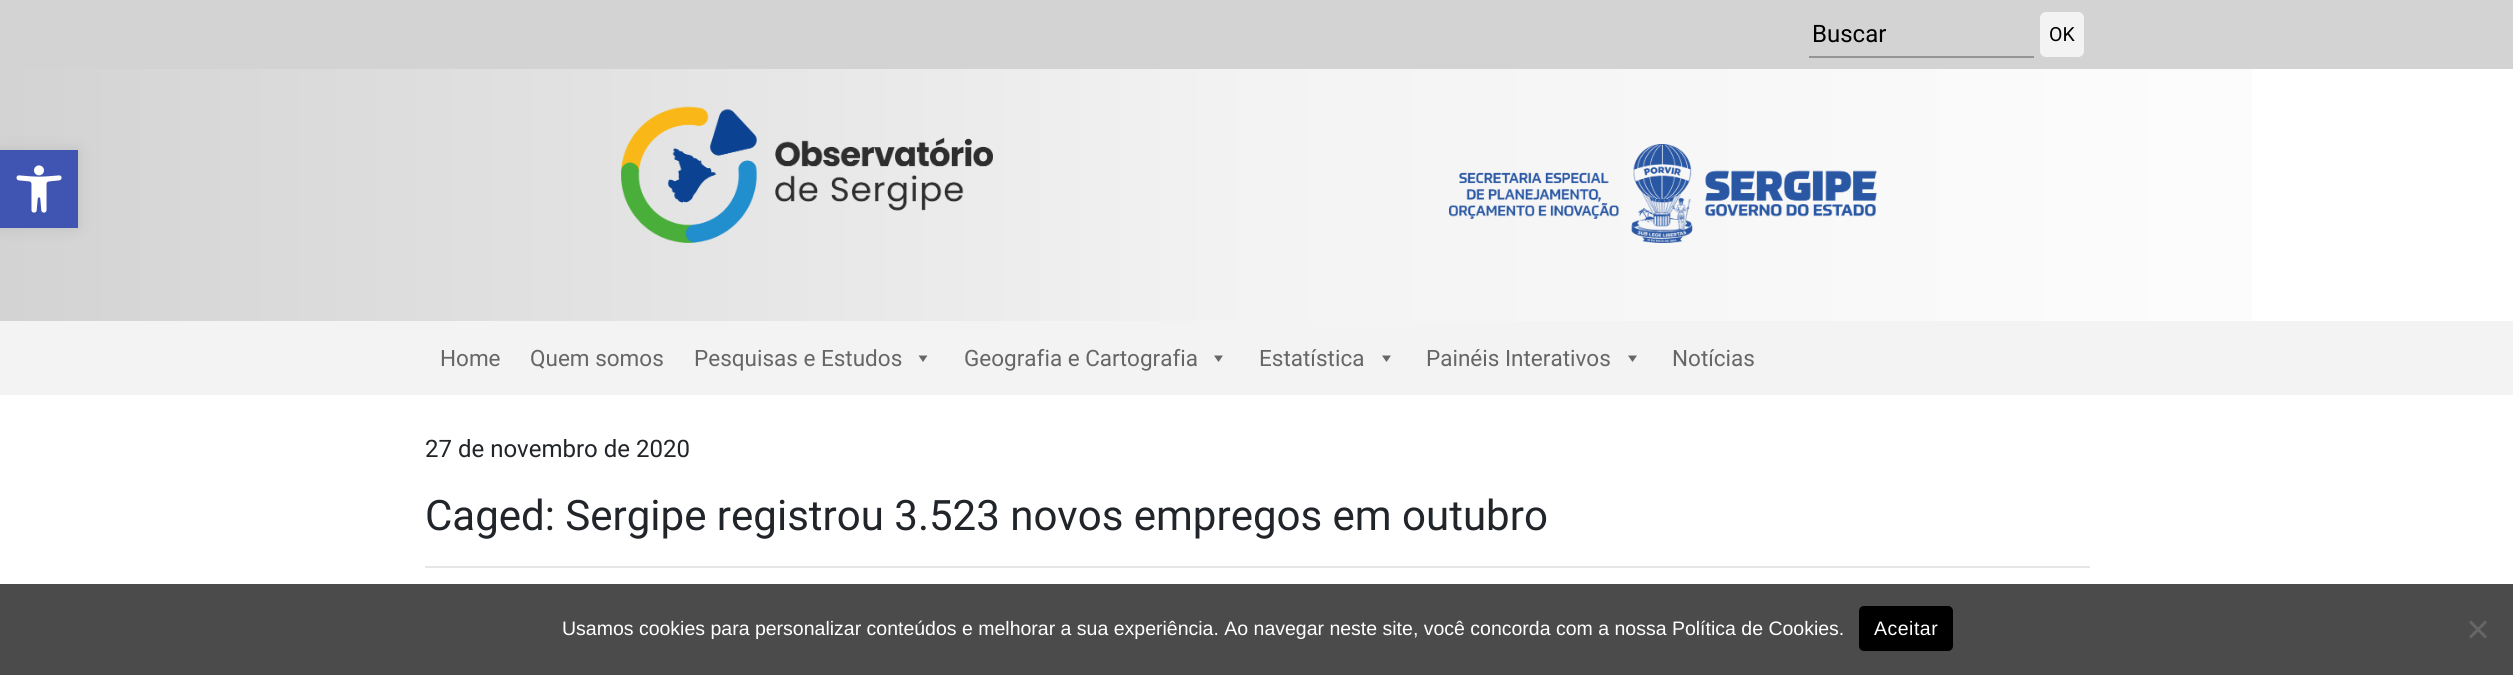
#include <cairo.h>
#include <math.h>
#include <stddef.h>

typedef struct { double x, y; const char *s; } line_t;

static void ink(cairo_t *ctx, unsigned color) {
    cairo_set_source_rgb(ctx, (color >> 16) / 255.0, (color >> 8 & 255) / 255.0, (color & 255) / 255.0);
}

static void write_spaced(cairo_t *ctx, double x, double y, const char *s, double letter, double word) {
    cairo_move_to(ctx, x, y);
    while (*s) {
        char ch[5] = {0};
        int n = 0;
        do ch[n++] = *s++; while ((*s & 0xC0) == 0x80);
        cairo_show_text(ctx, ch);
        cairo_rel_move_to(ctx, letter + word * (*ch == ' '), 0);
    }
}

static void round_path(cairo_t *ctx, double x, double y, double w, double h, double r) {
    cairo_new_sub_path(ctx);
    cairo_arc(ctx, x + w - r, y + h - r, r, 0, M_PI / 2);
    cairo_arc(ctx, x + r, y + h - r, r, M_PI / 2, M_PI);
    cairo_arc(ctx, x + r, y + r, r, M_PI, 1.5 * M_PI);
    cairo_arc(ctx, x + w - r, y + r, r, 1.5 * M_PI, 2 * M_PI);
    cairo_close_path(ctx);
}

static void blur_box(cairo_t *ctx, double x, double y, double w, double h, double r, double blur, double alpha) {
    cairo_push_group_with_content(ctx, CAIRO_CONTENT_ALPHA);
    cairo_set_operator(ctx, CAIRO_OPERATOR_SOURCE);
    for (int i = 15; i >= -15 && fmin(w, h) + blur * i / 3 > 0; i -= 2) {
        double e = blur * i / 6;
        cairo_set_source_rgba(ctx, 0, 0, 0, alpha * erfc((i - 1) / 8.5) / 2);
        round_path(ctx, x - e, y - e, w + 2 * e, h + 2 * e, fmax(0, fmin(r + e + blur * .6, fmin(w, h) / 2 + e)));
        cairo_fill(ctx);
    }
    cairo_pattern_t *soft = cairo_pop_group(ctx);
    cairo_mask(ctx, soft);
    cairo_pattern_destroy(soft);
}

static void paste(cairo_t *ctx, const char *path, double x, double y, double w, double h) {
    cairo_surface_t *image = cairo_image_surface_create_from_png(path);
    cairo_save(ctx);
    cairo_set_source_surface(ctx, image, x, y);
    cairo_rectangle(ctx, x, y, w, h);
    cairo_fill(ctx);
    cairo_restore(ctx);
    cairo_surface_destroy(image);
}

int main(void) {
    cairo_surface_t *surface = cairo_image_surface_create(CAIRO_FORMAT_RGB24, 2513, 675);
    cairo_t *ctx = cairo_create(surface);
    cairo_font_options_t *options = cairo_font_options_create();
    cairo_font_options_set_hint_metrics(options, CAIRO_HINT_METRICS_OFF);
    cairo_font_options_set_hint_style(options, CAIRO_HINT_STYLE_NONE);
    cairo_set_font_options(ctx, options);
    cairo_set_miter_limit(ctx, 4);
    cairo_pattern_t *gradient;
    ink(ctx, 0xFFFFFF);
    cairo_paint(ctx);
    ink(ctx, 0xD3D3D3);
    cairo_rectangle(ctx, 0, 0, 2513, 69);
    cairo_fill(ctx);
    ink(ctx, 0x949494);
    cairo_rectangle(ctx, 1809, 56, 225, 2);
    cairo_fill(ctx);
    cairo_select_font_face(ctx, "Roboto", CAIRO_FONT_SLANT_NORMAL, CAIRO_FONT_WEIGHT_NORMAL);
    cairo_set_font_size(ctx, 24);
    ink(ctx, 0x000000);
    cairo_move_to(ctx, 1812, 42);
    cairo_show_text(ctx, "Buscar");
    ink(ctx, 0xF3F3F3);
    round_path(ctx, 2040, 12, 44, 45, 6);
    cairo_fill(ctx);
    cairo_set_font_size(ctx, 19.5);
    ink(ctx, 0x000000);
    cairo_move_to(ctx, 2049, 41);
    cairo_show_text(ctx, "OK");
    gradient = cairo_pattern_create_linear(0, 195, 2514, 195);
    cairo_pattern_add_color_stop_rgba(gradient, 0, 0.827, 0.827, 0.827, 1);
    cairo_pattern_add_color_stop_rgba(gradient, 0.5, 0.953, 0.953, 0.953, 1);
    cairo_pattern_add_color_stop_rgba(gradient, 1, 1, 1, 1, 1);
    cairo_set_source(ctx, gradient);
    cairo_pattern_destroy(gradient);
    cairo_rectangle(ctx, 0, 69, 2252, 252);
    cairo_fill(ctx);
    paste(ctx, "media/1.png", 621, 106, 372, 137);
    paste(ctx, "media/2.png", 1449, 144, 428, 99);
    ink(ctx, 0x000000);
    blur_box(ctx, 0, 150, 78, 78, 0, 7.5, 0.1);
    ink(ctx, 0x4054B2);
    cairo_rectangle(ctx, 0, 150, 78, 78);
    cairo_fill(ctx);
    paste(ctx, "media/3.png", 16, 165, 46, 48);
    ink(ctx, 0xF3F3F3);
    cairo_rectangle(ctx, 0, 321, 2513, 74);
    cairo_fill(ctx);
    cairo_set_font_size(ctx, 22.5);
    ink(ctx, 0x666666);
    {
        static const line_t items[] = {
            {440, 366, "Home"},
            {530, 366, "Quem somos"},
            {694, 366, "Pesquisas e Estudos"},
        };
        for (size_t i = 0; i < sizeof items / sizeof *items; i++) {
            cairo_move_to(ctx, items[i].x, items[i].y);
            cairo_show_text(ctx, items[i].s);
        }
    }
    cairo_new_path(ctx);
    cairo_move_to(ctx, 927.5, 355.5);
    cairo_line_to(ctx, 923, 362);
    cairo_line_to(ctx, 918.5, 355.5);
    cairo_close_path(ctx);
    cairo_fill(ctx);
    cairo_move_to(ctx, 964, 366);
    cairo_show_text(ctx, "Geografia e Cartografia");
    cairo_new_path(ctx);
    cairo_move_to(ctx, 1223, 355.5);
    cairo_line_to(ctx, 1218.5, 362);
    cairo_line_to(ctx, 1214, 355.5);
    cairo_close_path(ctx);
    cairo_fill(ctx);
    cairo_move_to(ctx, 1259, 366);
    cairo_show_text(ctx, "Estatística");
    cairo_new_path(ctx);
    cairo_move_to(ctx, 1391, 355.5);
    cairo_line_to(ctx, 1386.5, 362);
    cairo_line_to(ctx, 1382, 355.5);
    cairo_close_path(ctx);
    cairo_fill(ctx);
    cairo_move_to(ctx, 1426, 366);
    cairo_show_text(ctx, "Painéis Interativos");
    cairo_new_path(ctx);
    cairo_move_to(ctx, 1637, 355.5);
    cairo_line_to(ctx, 1632.5, 362);
    cairo_line_to(ctx, 1628, 355.5);
    cairo_close_path(ctx);
    cairo_fill(ctx);
    cairo_move_to(ctx, 1672, 366);
    cairo_show_text(ctx, "Notícias");
    cairo_set_font_size(ctx, 24);
    ink(ctx, 0x212529);
    cairo_move_to(ctx, 425, 457);
    cairo_show_text(ctx, "27 de novembro de 2020");
    cairo_set_font_size(ctx, 42);
    cairo_move_to(ctx, 425, 530);
    cairo_show_text(ctx, "Caged: Sergipe registrou 3.523 novos empregos em outubro");
    ink(ctx, 0xE6E6E6);
    cairo_rectangle(ctx, 425, 566, 1665, 2);
    cairo_fill(ctx);
    ink(ctx, 0x4B4B4B);
    cairo_rectangle(ctx, 0, 584, 2513, 91);
    cairo_fill(ctx);
    cairo_select_font_face(ctx, "Liberation Sans", CAIRO_FONT_SLANT_NORMAL, CAIRO_FONT_WEIGHT_NORMAL);
    cairo_set_font_size(ctx, 19.5);
    ink(ctx, 0xFFFFFF);
    cairo_move_to(ctx, 562, 635);
    cairo_show_text(ctx, "Usamos cookies para personalizar conteúdos e melhorar a sua experiência. Ao navegar neste site, você concorda com a nossa Política de Cookies.");
    ink(ctx, 0x000000);
    round_path(ctx, 1859, 606, 94, 45, 5);
    cairo_fill(ctx);
    ink(ctx, 0xFFFFFF);
    write_spaced(ctx, 1874, 635, "Aceitar", 0.5, 0);
    ink(ctx, 0x666666);
    cairo_new_path(ctx);
    cairo_move_to(ctx, 2485, 620.5);
    cairo_line_to(ctx, 2487, 622.5);
    cairo_line_to(ctx, 2471, 638.5);
    cairo_line_to(ctx, 2469, 636.5);
    cairo_close_path(ctx);
    cairo_fill(ctx);
    cairo_new_path(ctx);
    cairo_move_to(ctx, 2469, 622.5);
    cairo_line_to(ctx, 2471, 620.5);
    cairo_line_to(ctx, 2487, 636.5);
    cairo_line_to(ctx, 2485, 638.5);
    cairo_close_path(ctx);
    cairo_fill(ctx);
    cairo_surface_write_to_png(surface, "image.png");
    cairo_font_options_destroy(options);
    cairo_destroy(ctx);
    cairo_surface_destroy(surface);
    return 0;
}
